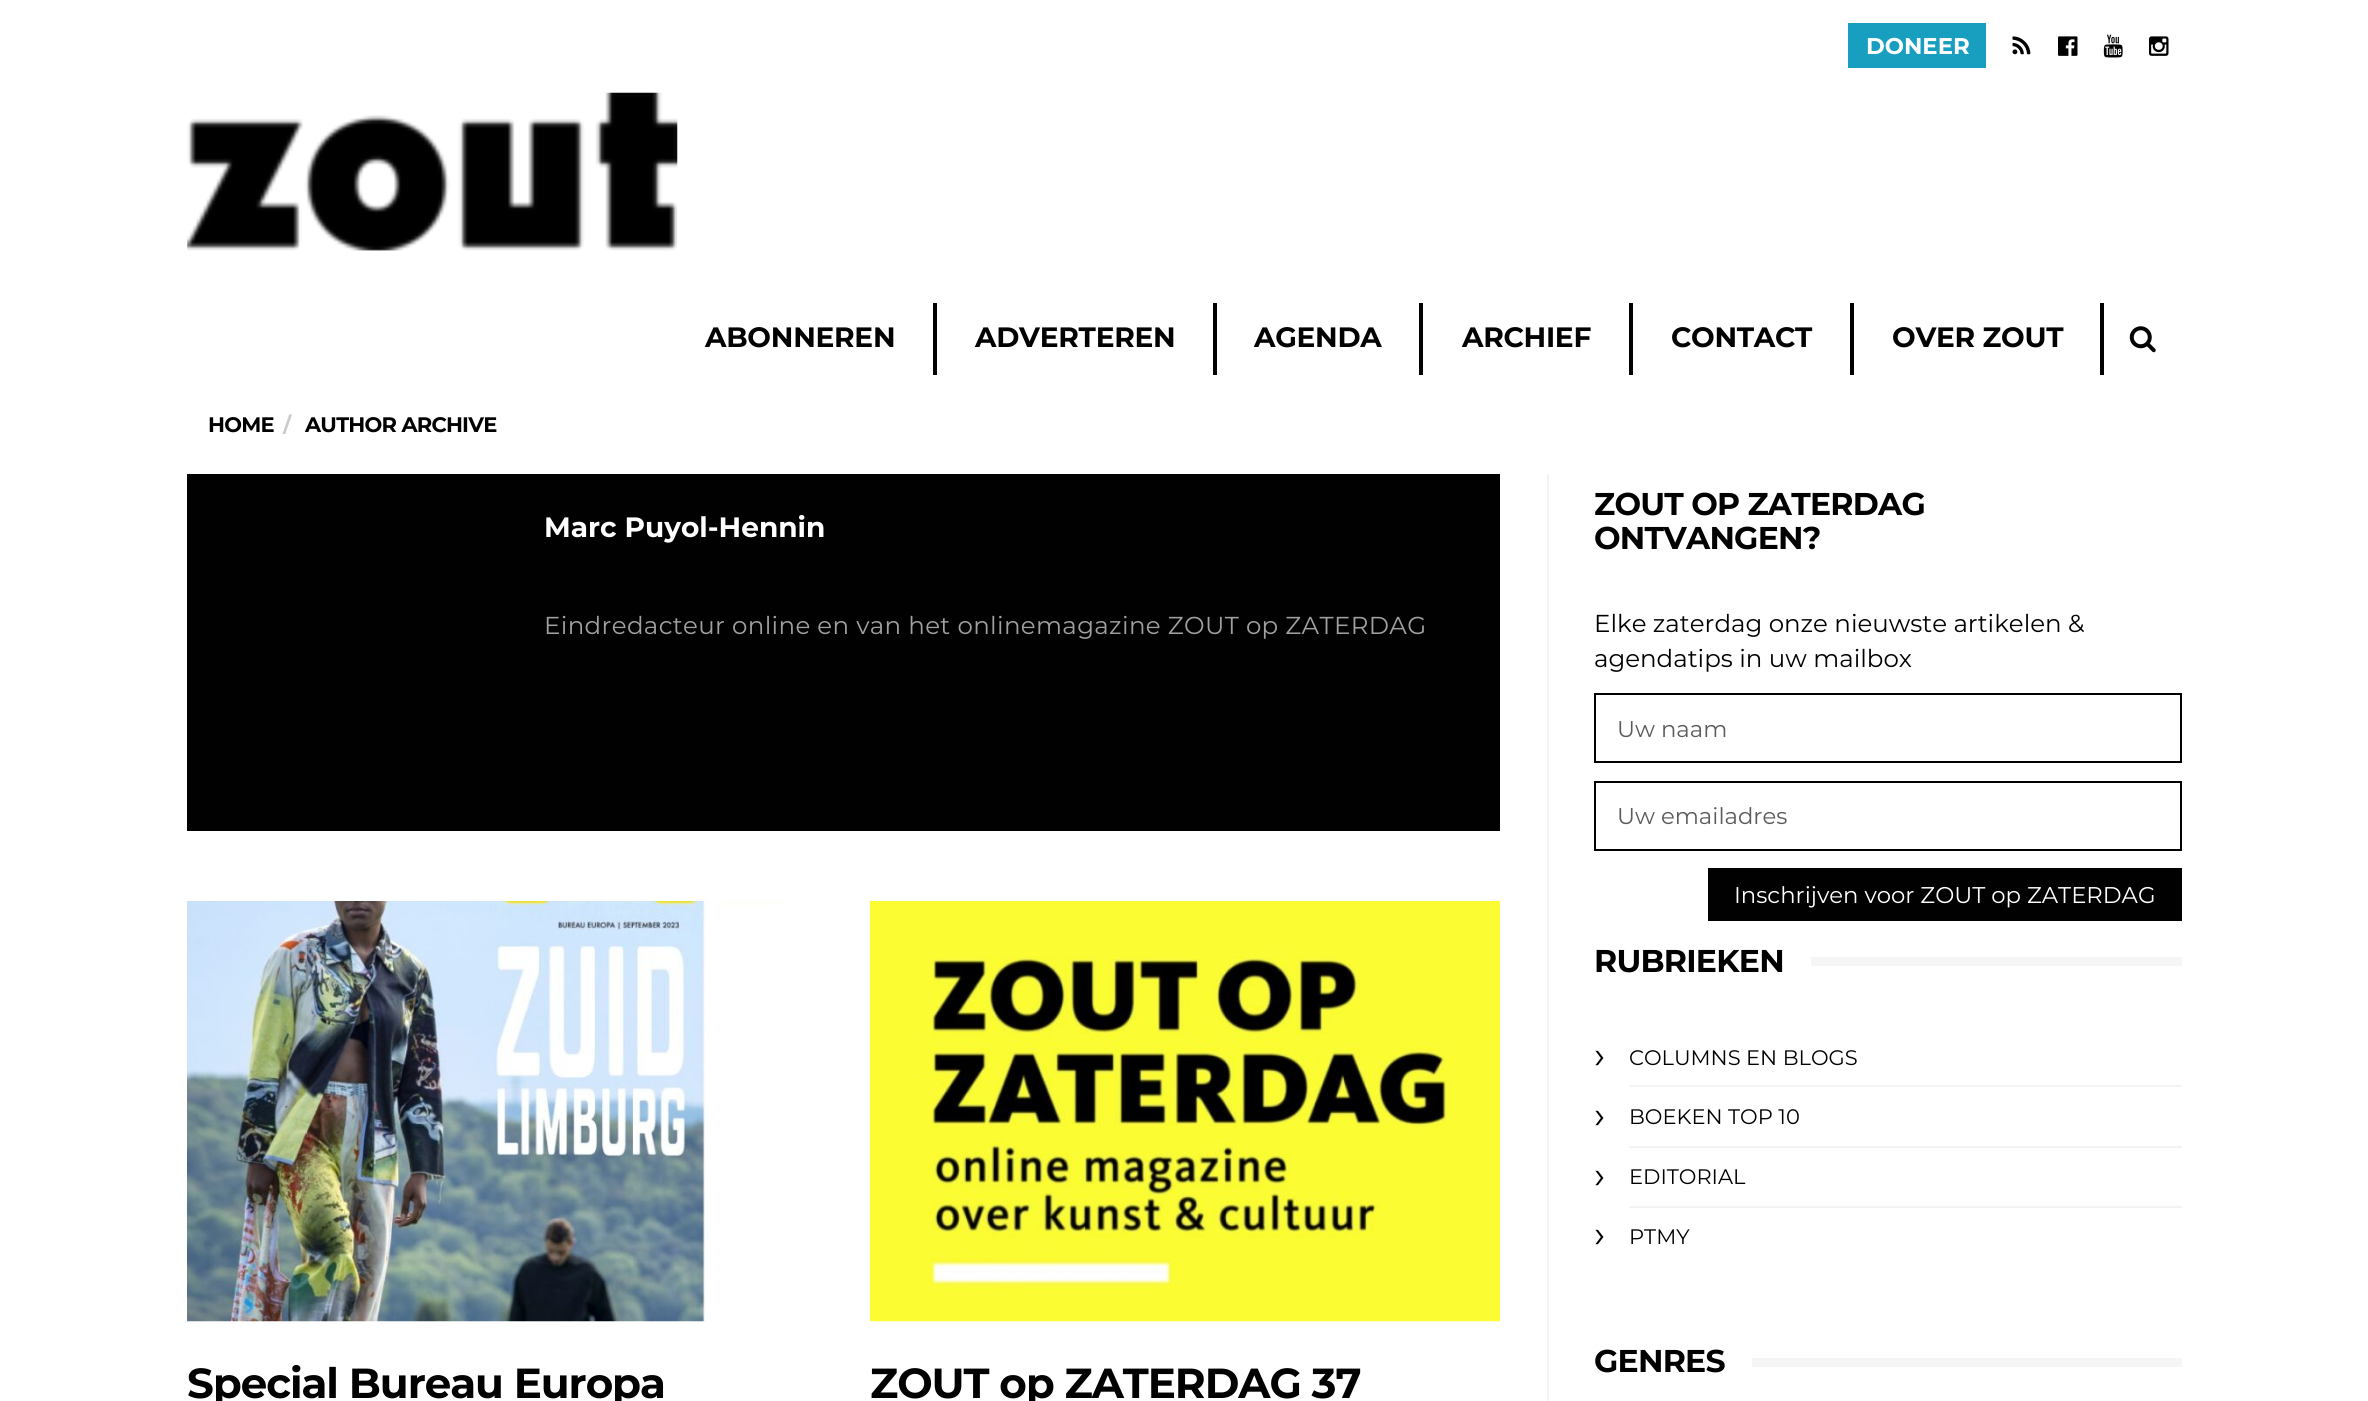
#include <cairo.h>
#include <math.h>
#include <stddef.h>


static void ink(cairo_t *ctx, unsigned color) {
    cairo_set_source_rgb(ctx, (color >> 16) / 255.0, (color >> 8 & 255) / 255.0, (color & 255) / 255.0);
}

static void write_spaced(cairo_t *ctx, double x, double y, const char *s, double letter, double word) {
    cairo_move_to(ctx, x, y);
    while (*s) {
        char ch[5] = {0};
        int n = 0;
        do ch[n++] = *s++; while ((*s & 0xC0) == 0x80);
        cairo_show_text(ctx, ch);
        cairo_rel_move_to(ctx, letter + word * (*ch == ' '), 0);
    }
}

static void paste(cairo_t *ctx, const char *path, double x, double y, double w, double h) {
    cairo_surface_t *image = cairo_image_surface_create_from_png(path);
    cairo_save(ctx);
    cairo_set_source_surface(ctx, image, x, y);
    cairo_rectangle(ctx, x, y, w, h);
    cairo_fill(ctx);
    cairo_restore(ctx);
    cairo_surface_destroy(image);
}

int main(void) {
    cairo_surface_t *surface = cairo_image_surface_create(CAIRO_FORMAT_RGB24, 2368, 1401);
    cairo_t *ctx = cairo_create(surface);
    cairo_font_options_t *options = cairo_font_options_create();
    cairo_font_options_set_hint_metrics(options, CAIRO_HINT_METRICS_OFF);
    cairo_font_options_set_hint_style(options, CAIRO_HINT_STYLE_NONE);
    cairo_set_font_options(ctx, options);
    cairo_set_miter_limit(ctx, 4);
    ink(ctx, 0xFFFFFF);
    cairo_paint(ctx);
    ink(ctx, 0x189EBF);
    cairo_rectangle(ctx, 1848, 23, 138, 45);
    cairo_fill(ctx);
    cairo_select_font_face(ctx, "Montserrat", CAIRO_FONT_SLANT_NORMAL, CAIRO_FONT_WEIGHT_BOLD);
    cairo_set_font_size(ctx, 22.75);
    ink(ctx, 0xFFFFFF);
    cairo_move_to(ctx, 1866, 54);
    cairo_show_text(ctx, "DONEER");
    paste(ctx, "media/1.png", 2012, 36, 19, 19);
    paste(ctx, "media/2.png", 2058, 36, 20, 20);
    paste(ctx, "media/3.png", 2103, 34, 20, 24);
    paste(ctx, "media/4.png", 2149, 36, 20, 20);
    paste(ctx, "media/5.png", 187, 92, 491, 159);
    ink(ctx, 0x010101);
    cairo_rectangle(ctx, 933, 303, 4, 72);
    cairo_fill(ctx);
    cairo_set_font_size(ctx, 28);
    write_spaced(ctx, 705, 347, "ABONNEREN", -0.25, 0);
    cairo_rectangle(ctx, 1213, 303, 4, 72);
    cairo_fill(ctx);
    write_spaced(ctx, 975, 347, "ADVERTEREN", -0.25, 0);
    cairo_rectangle(ctx, 1419, 303, 4, 72);
    cairo_fill(ctx);
    write_spaced(ctx, 1254, 347, "AGENDA", -0.25, 0);
    cairo_rectangle(ctx, 1629, 303, 4, 72);
    cairo_fill(ctx);
    write_spaced(ctx, 1462, 347, "ARCHIEF", -0.25, 0);
    cairo_rectangle(ctx, 1850, 303, 4, 72);
    cairo_fill(ctx);
    write_spaced(ctx, 1671, 347, "CONTACT", -0.25, 0);
    cairo_rectangle(ctx, 2100, 303, 4, 72);
    cairo_fill(ctx);
    write_spaced(ctx, 1892, 347, "OVER ZOUT", -0.25, 0);
    paste(ctx, "media/6.png", 2129, 326, 27, 27);
    cairo_set_font_size(ctx, 21);
    write_spaced(ctx, 208, 432, "HOME", -0.75, 0);
    ink(ctx, 0xCCCCCC);
    write_spaced(ctx, 283, 432, "/", -0.75, 0);
    ink(ctx, 0x010101);
    write_spaced(ctx, 305, 432, "AUTHOR ARCHIVE", -0.75, 0);
    ink(ctx, 0xF3F3F3);
    cairo_rectangle(ctx, 1547, 474, 2, 927);
    cairo_fill(ctx);
    ink(ctx, 0x010101);
    cairo_rectangle(ctx, 187, 474, 1313, 357);
    cairo_fill(ctx);
    cairo_set_font_size(ctx, 28);
    ink(ctx, 0xFFFFFF);
    cairo_move_to(ctx, 544, 537);
    cairo_show_text(ctx, "Marc Puyol-Hennin");
    cairo_select_font_face(ctx, "Montserrat", CAIRO_FONT_SLANT_NORMAL, CAIRO_FONT_WEIGHT_NORMAL);
    cairo_set_font_size(ctx, 24.5);
    ink(ctx, 0xA0A0A0);
    write_spaced(ctx, 544, 634, "Eindredacteur online en van het onlinemagazine ZOUT op ZATERDAG", 0.35, 0);
    paste(ctx, "media/7.png", 187, 901, 630, 421);
    cairo_select_font_face(ctx, "Montserrat", CAIRO_FONT_SLANT_NORMAL, CAIRO_FONT_WEIGHT_BOLD);
    cairo_set_font_size(ctx, 42);
    ink(ctx, 0x010101);
    write_spaced(ctx, 187, 1398, "Special Bureau Europa", -1.05, 0);
    paste(ctx, "media/8.png", 870, 901, 630, 421);
    write_spaced(ctx, 870, 1398, "ZOUT op ZATERDAG 37", -1.05, 0);
    cairo_set_font_size(ctx, 31.5);
    write_spaced(ctx, 1594, 515, "ZOUT OP ZATERDAG", -0.75, 0);
    write_spaced(ctx, 1594, 549, "ONTVANGEN?", -0.75, 0);
    cairo_select_font_face(ctx, "Montserrat", CAIRO_FONT_SLANT_NORMAL, CAIRO_FONT_WEIGHT_NORMAL);
    cairo_set_font_size(ctx, 24.5);
    cairo_move_to(ctx, 1594, 632);
    cairo_show_text(ctx, "Elke zaterdag onze nieuwste artikelen &");
    cairo_move_to(ctx, 1594, 667);
    cairo_show_text(ctx, "agendatips in uw mailbox");
    cairo_rectangle(ctx, 1595, 694, 586, 68);
    cairo_stroke(ctx);
    cairo_set_font_size(ctx, 22.75);
    ink(ctx, 0x5B5B5B);
    cairo_move_to(ctx, 1617, 737);
    cairo_show_text(ctx, "Uw naam");
    cairo_rectangle(ctx, 1595, 782, 586, 68);
    ink(ctx, 0x010101);
    cairo_stroke(ctx);
    ink(ctx, 0x5B5B5B);
    cairo_move_to(ctx, 1617, 824);
    cairo_show_text(ctx, "Uw emailadres");
    ink(ctx, 0x010101);
    cairo_rectangle(ctx, 1708, 868, 474, 53);
    cairo_fill(ctx);
    ink(ctx, 0xFFFFFF);
    cairo_move_to(ctx, 1734, 903);
    cairo_show_text(ctx, "Inschrijven voor ZOUT op ZATERDAG");
    cairo_select_font_face(ctx, "Montserrat", CAIRO_FONT_SLANT_NORMAL, CAIRO_FONT_WEIGHT_BOLD);
    cairo_set_font_size(ctx, 31.5);
    ink(ctx, 0x010101);
    write_spaced(ctx, 1594, 972, "RUBRIEKEN", -0.75, 0);
    ink(ctx, 0xF5F5F5);
    cairo_rectangle(ctx, 1811, 957, 371, 9);
    cairo_fill(ctx);
    ink(ctx, 0xF3F3F3);
    cairo_rectangle(ctx, 1629, 1085, 553, 2);
    cairo_fill(ctx);
    cairo_select_font_face(ctx, "Montserrat", CAIRO_FONT_SLANT_NORMAL, CAIRO_FONT_WEIGHT_NORMAL);
    cairo_set_font_size(ctx, 38);
    ink(ctx, 0x010101);
    cairo_move_to(ctx, 1594, 1068);
    cairo_show_text(ctx, "›");
    cairo_set_font_size(ctx, 21);
    cairo_move_to(ctx, 1629, 1065);
    cairo_show_text(ctx, "COLUMNS EN BLOGS");
    ink(ctx, 0xF3F3F3);
    cairo_rectangle(ctx, 1629, 1146, 553, 2);
    cairo_fill(ctx);
    cairo_set_font_size(ctx, 38);
    ink(ctx, 0x010101);
    cairo_move_to(ctx, 1594, 1128);
    cairo_show_text(ctx, "›");
    cairo_set_font_size(ctx, 21);
    cairo_move_to(ctx, 1629, 1124);
    cairo_show_text(ctx, "BOEKEN TOP 10");
    ink(ctx, 0xF3F3F3);
    cairo_rectangle(ctx, 1629, 1206, 553, 2);
    cairo_fill(ctx);
    cairo_set_font_size(ctx, 38);
    ink(ctx, 0x010101);
    cairo_move_to(ctx, 1594, 1188);
    cairo_show_text(ctx, "›");
    cairo_set_font_size(ctx, 21);
    cairo_move_to(ctx, 1629, 1184);
    cairo_show_text(ctx, "EDITORIAL");
    cairo_set_font_size(ctx, 38);
    cairo_move_to(ctx, 1594, 1247);
    cairo_show_text(ctx, "›");
    cairo_set_font_size(ctx, 21);
    cairo_move_to(ctx, 1629, 1244);
    cairo_show_text(ctx, "PTMY");
    cairo_select_font_face(ctx, "Montserrat", CAIRO_FONT_SLANT_NORMAL, CAIRO_FONT_WEIGHT_BOLD);
    cairo_set_font_size(ctx, 31.5);
    write_spaced(ctx, 1594, 1372, "GENRES", -0.75, 0);
    ink(ctx, 0xF5F5F5);
    cairo_rectangle(ctx, 1752, 1358, 430, 9);
    cairo_fill(ctx);
    cairo_surface_write_to_png(surface, "image.png");
    cairo_font_options_destroy(options);
    cairo_destroy(ctx);
    cairo_surface_destroy(surface);
    return 0;
}
